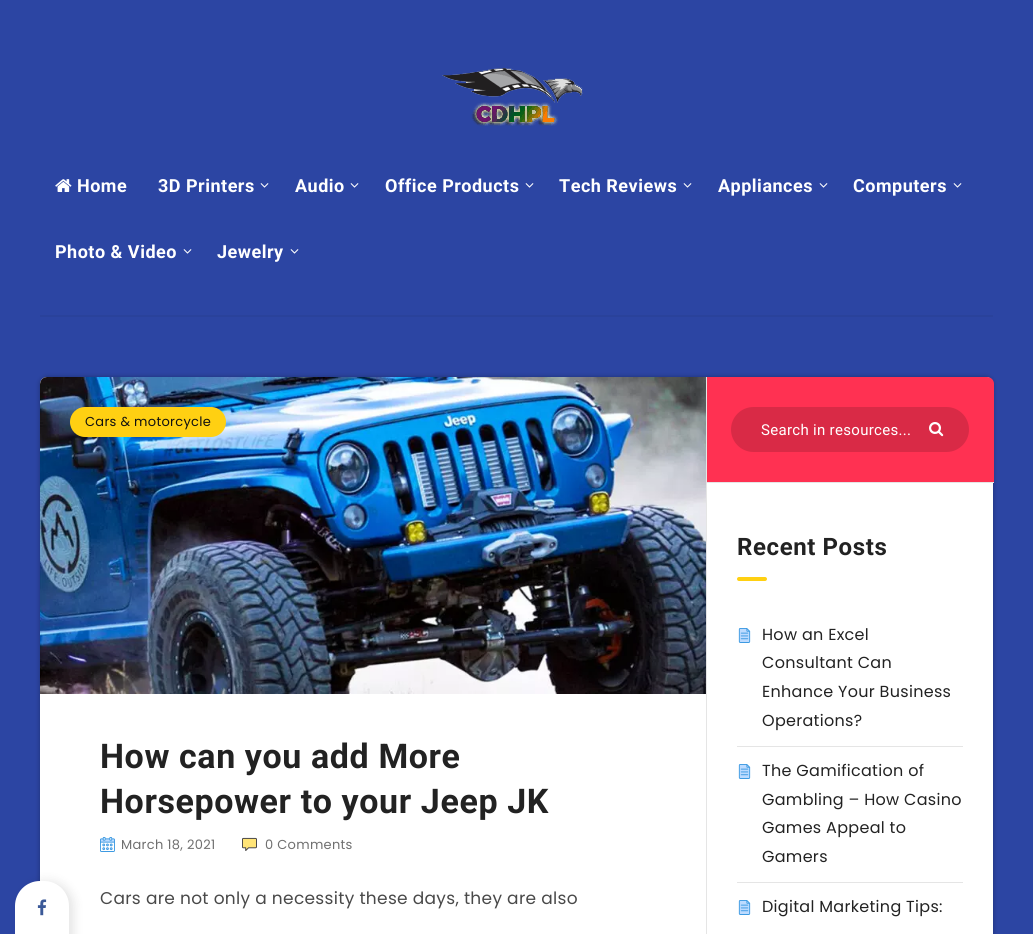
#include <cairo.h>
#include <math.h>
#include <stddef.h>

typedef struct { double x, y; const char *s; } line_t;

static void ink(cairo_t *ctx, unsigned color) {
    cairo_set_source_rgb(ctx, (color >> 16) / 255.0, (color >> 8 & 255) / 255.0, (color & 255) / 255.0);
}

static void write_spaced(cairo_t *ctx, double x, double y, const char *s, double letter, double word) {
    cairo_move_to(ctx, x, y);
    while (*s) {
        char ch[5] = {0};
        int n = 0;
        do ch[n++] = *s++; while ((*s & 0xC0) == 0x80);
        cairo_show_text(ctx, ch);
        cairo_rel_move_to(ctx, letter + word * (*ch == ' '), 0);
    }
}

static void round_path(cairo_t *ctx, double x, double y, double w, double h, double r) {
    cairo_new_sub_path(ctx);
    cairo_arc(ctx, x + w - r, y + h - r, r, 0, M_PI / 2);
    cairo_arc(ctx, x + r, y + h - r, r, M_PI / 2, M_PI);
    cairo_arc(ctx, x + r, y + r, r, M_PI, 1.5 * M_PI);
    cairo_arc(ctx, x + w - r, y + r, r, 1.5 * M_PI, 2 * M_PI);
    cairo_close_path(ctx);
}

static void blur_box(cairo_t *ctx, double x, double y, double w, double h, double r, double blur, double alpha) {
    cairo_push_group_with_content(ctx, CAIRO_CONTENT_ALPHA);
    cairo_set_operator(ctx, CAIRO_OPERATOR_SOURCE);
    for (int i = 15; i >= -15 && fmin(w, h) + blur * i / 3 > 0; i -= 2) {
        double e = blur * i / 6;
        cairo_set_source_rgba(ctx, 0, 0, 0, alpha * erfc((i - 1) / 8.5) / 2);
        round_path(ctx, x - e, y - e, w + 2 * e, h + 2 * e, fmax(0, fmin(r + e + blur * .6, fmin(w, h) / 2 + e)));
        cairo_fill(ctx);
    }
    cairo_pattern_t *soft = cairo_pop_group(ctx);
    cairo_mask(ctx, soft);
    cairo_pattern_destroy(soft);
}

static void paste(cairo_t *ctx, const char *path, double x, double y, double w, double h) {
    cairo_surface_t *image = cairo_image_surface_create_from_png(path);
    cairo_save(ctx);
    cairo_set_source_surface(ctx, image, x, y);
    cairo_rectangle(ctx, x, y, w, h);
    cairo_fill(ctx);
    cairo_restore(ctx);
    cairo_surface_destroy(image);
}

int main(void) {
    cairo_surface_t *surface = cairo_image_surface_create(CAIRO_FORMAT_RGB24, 1033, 934);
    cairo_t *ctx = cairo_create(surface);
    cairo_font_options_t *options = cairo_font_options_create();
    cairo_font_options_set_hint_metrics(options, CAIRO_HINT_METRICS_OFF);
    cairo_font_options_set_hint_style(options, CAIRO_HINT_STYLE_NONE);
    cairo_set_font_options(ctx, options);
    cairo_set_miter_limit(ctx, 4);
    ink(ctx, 0x2C45A3);
    cairo_paint(ctx);
    paste(ctx, "media/1.png", 442, 68, 141, 58);
    paste(ctx, "media/2.png", 55, 179, 17, 13);
    cairo_select_font_face(ctx, "Roboto", CAIRO_FONT_SLANT_NORMAL, CAIRO_FONT_WEIGHT_BOLD);
    cairo_set_font_size(ctx, 18);
    ink(ctx, 0xFFFFFF);
    write_spaced(ctx, 77, 192, "Home", 0.5, 0);
    write_spaced(ctx, 158, 192, "3D Printers", 0.5, 0);
    paste(ctx, "media/3.png", 260, 183, 9, 5);
    write_spaced(ctx, 295, 192, "Audio", 0.5, 0);
    paste(ctx, "media/3.png", 350, 183, 9, 5);
    write_spaced(ctx, 385, 192, "Office Products", 0.5, 0);
    paste(ctx, "media/3.png", 525, 183, 9, 5);
    write_spaced(ctx, 559, 192, "Tech Reviews", 0.5, 0);
    paste(ctx, "media/3.png", 683, 183, 9, 5);
    write_spaced(ctx, 718, 192, "Appliances", 0.5, 0);
    paste(ctx, "media/3.png", 819, 183, 9, 5);
    write_spaced(ctx, 853, 192, "Computers", 0.5, 0);
    paste(ctx, "media/3.png", 953, 183, 9, 5);
    write_spaced(ctx, 55, 258, "Photo & Video", 0.5, 0);
    paste(ctx, "media/3.png", 183, 249, 9, 5);
    write_spaced(ctx, 217, 258, "Jewelry", 0.5, 0);
    paste(ctx, "media/3.png", 290, 249, 9, 5);
    ink(ctx, 0x2A429B);
    cairo_rectangle(ctx, 40, 315, 953, 2);
    cairo_fill(ctx);
    ink(ctx, 0x000000);
    blur_box(ctx, 40, 377, 953, 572, 7, 2.5, 0.3);
    ink(ctx, 0xFFFFFF);
    cairo_new_path(ctx);
    cairo_move_to(ctx, 47, 377);
    cairo_line_to(ctx, 986, 377);
    cairo_curve_to(ctx, 990, 377, 993, 380, 993, 384);
    cairo_line_to(ctx, 993, 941);
    cairo_line_to(ctx, 40, 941);
    cairo_line_to(ctx, 40, 384);
    cairo_curve_to(ctx, 40, 380, 43, 377, 47, 377);
    cairo_close_path(ctx);
    cairo_fill(ctx);
    paste(ctx, "media/4.png", 40, 377, 666, 317);
    ink(ctx, 0xFFD012);
    round_path(ctx, 70, 407, 156, 30, 15);
    cairo_fill(ctx);
    cairo_select_font_face(ctx, "Poppins", CAIRO_FONT_SLANT_NORMAL, CAIRO_FONT_WEIGHT_NORMAL);
    cairo_set_font_size(ctx, 13);
    ink(ctx, 0x111111);
    write_spaced(ctx, 85, 426, "Cars & motorcycle", 0.3, 0);
    cairo_select_font_face(ctx, "Roboto", CAIRO_FONT_SLANT_NORMAL, CAIRO_FONT_WEIGHT_BOLD);
    cairo_set_font_size(ctx, 34);
    ink(ctx, 0x222222);
    write_spaced(ctx, 100, 768, "How can you add More", 0.6, 0);
    write_spaced(ctx, 100, 813, "Horsepower to your Jeep JK", 0.6, 0);
    paste(ctx, "media/5.png", 100, 837, 15, 15);
    cairo_select_font_face(ctx, "Poppins", CAIRO_FONT_SLANT_NORMAL, CAIRO_FONT_WEIGHT_NORMAL);
    cairo_set_font_size(ctx, 13);
    ink(ctx, 0x6F6F6F);
    write_spaced(ctx, 121, 849, "March 18, 2021", 0.3, 0);
    paste(ctx, "media/6.png", 242, 837, 15, 14);
    write_spaced(ctx, 265, 849, "0 Comments", 0.3, 0);
    ink(ctx, 0x000000);
    blur_box(ctx, 20, 881, 54, 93, 25, 5, 0.1);
    ink(ctx, 0xFFFFFF);
    round_path(ctx, 15, 881, 54, 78, 25);
    cairo_fill(ctx);
    paste(ctx, "media/7.png", 37, 899, 10, 17);
    cairo_set_font_size(ctx, 17);
    ink(ctx, 0x494949);
    write_spaced(ctx, 100, 904, "Cars are not only a necessity these days, they are also", 0.3, 0);
    ink(ctx, 0xFF3152);
    cairo_new_path(ctx);
    cairo_move_to(ctx, 706, 377);
    cairo_line_to(ctx, 987, 377);
    cairo_curve_to(ctx, 991, 377, 994, 380, 994, 384);
    cairo_line_to(ctx, 994, 483);
    cairo_line_to(ctx, 706, 483);
    cairo_close_path(ctx);
    cairo_fill(ctx);
    ink(ctx, 0xE5E5E5);
    cairo_rectangle(ctx, 706, 482, 288, 1);
    cairo_fill(ctx);
    cairo_rectangle(ctx, 706, 377, 1, 557);
    cairo_fill(ctx);
    ink(ctx, 0xD92A46);
    round_path(ctx, 731, 407, 238, 45, 22.5);
    cairo_fill(ctx);
    cairo_select_font_face(ctx, "Roboto", CAIRO_FONT_SLANT_NORMAL, CAIRO_FONT_WEIGHT_NORMAL);
    cairo_set_font_size(ctx, 15);
    ink(ctx, 0xFFFFFF);
    write_spaced(ctx, 761, 435, "Search in resources...", 0.3, 0);
    paste(ctx, "media/8.png", 929, 422, 15, 15);
    cairo_select_font_face(ctx, "Roboto", CAIRO_FONT_SLANT_NORMAL, CAIRO_FONT_WEIGHT_BOLD);
    cairo_set_font_size(ctx, 24);
    ink(ctx, 0x222222);
    write_spaced(ctx, 737, 555, "Recent Posts", 0.6, 0);
    ink(ctx, 0xFFD012);
    round_path(ctx, 737, 577, 30, 4, 2);
    cairo_fill(ctx);
    paste(ctx, "media/9.png", 738, 628, 13, 15);
    ink(ctx, 0xE5E5E5);
    cairo_rectangle(ctx, 737, 746, 226, 1);
    cairo_fill(ctx);
    cairo_select_font_face(ctx, "Poppins", CAIRO_FONT_SLANT_NORMAL, CAIRO_FONT_WEIGHT_NORMAL);
    cairo_set_font_size(ctx, 16);
    ink(ctx, 0x222222);
    {
        static const line_t items[] = {
            {762, 640, "How an Excel"},
            {762, 668, "Consultant Can"},
            {762, 697, "Enhance Your Business"},
            {762, 726, "Operations?"},
        };
        for (size_t i = 0; i < sizeof items / sizeof *items; i++) {
            write_spaced(ctx, items[i].x, items[i].y, items[i].s, 0.3, 0);
        }
    }
    paste(ctx, "media/9.png", 738, 764, 13, 15);
    ink(ctx, 0xE5E5E5);
    cairo_rectangle(ctx, 737, 882, 226, 1);
    cairo_fill(ctx);
    ink(ctx, 0x222222);
    {
        static const line_t items[] = {
            {762, 776, "The Gamification of"},
            {762, 805, "Gambling – How Casino"},
            {762, 833, "Games Appeal to"},
            {762, 862, "Gamers"},
        };
        for (size_t i = 0; i < sizeof items / sizeof *items; i++) {
            write_spaced(ctx, items[i].x, items[i].y, items[i].s, 0.3, 0);
        }
    }
    paste(ctx, "media/9.png", 738, 900, 13, 15);
    write_spaced(ctx, 762, 912, "Digital Marketing Tips:", 0.3, 0);
    cairo_surface_write_to_png(surface, "image.png");
    cairo_font_options_destroy(options);
    cairo_destroy(ctx);
    cairo_surface_destroy(surface);
    return 0;
}
